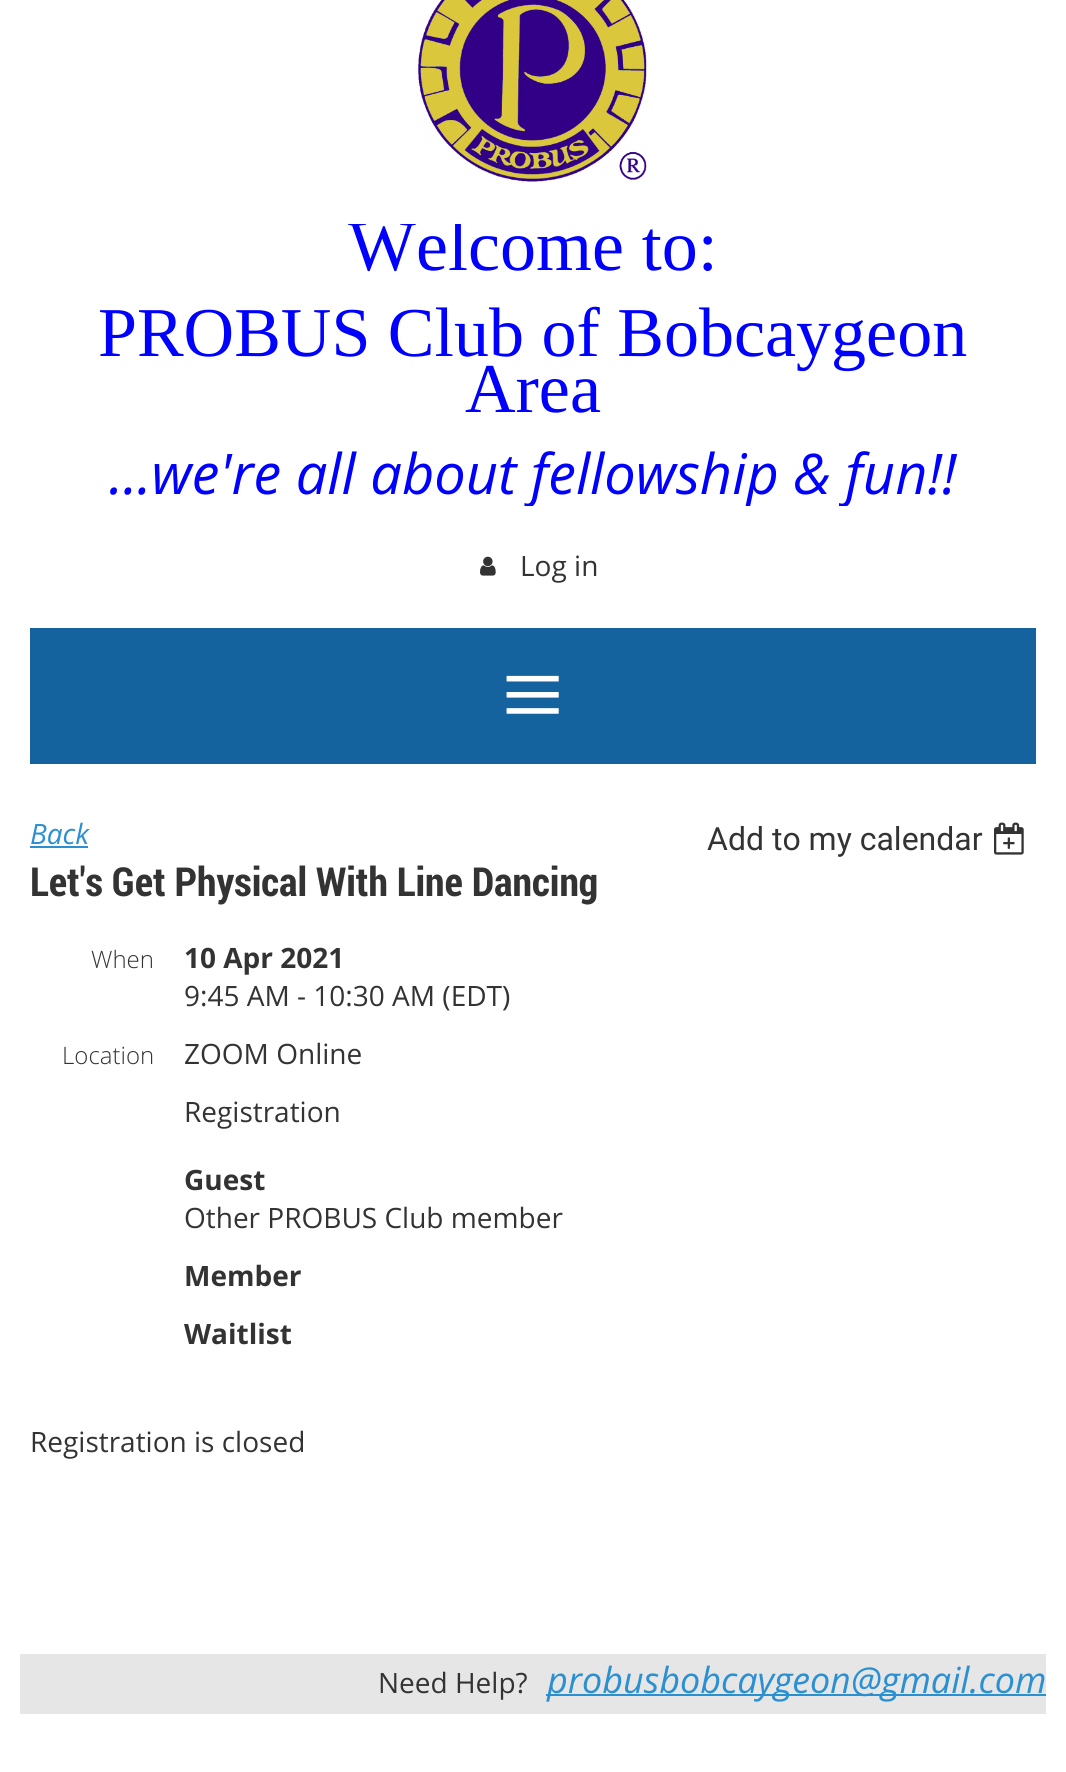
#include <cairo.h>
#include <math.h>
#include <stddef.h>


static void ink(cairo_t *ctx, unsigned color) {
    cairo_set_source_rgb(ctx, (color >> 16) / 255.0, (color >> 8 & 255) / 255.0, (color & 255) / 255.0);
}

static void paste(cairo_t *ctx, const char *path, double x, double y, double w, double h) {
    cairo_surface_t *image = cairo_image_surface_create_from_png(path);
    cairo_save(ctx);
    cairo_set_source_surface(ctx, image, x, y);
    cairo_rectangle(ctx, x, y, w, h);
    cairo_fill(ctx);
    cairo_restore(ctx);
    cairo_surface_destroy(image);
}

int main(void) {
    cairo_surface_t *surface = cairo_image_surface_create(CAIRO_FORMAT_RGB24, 1066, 1772);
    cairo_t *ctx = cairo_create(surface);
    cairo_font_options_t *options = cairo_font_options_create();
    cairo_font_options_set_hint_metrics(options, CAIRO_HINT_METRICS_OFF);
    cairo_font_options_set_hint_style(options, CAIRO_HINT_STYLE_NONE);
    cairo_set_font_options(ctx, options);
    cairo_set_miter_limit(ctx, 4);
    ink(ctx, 0xFFFFFF);
    cairo_paint(ctx);
    paste(ctx, "media/1.png", 418, 0, 229, 182);
    cairo_save(ctx);
    cairo_rectangle(ctx, 30, 224, 1006, 282);
    cairo_clip(ctx);
    cairo_select_font_face(ctx, "Liberation Serif", CAIRO_FONT_SLANT_NORMAL, CAIRO_FONT_WEIGHT_NORMAL);
    cairo_set_font_size(ctx, 72);
    ink(ctx, 0x0000FF);
    cairo_move_to(ctx, 348, 270);
    cairo_show_text(ctx, "Welcome to:");
    cairo_restore(ctx);
    cairo_select_font_face(ctx, "Liberation Serif", CAIRO_FONT_SLANT_NORMAL, CAIRO_FONT_WEIGHT_NORMAL);
    cairo_set_font_size(ctx, 70);
    ink(ctx, 0x0000FF);
    cairo_move_to(ctx, 98, 356);
    cairo_show_text(ctx, "PROBUS Club of Bobcaygeon");
    cairo_move_to(ctx, 465, 412);
    cairo_show_text(ctx, "Area");
    cairo_save(ctx);
    cairo_rectangle(ctx, 30, 224, 1006, 282);
    cairo_clip(ctx);
    cairo_select_font_face(ctx, "Open Sans", CAIRO_FONT_SLANT_ITALIC, CAIRO_FONT_WEIGHT_NORMAL);
    cairo_set_font_size(ctx, 56);
    cairo_move_to(ctx, 109, 494);
    cairo_show_text(ctx, "...we're all about fellowship & fun!!");
    cairo_restore(ctx);
    paste(ctx, "media/2.png", 480, 556, 16, 20);
    cairo_select_font_face(ctx, "Open Sans", CAIRO_FONT_SLANT_NORMAL, CAIRO_FONT_WEIGHT_NORMAL);
    cairo_set_font_size(ctx, 28);
    ink(ctx, 0x333333);
    cairo_move_to(ctx, 520, 576);
    cairo_show_text(ctx, "Log in");
    ink(ctx, 0x14629E);
    cairo_rectangle(ctx, 30, 628, 1006, 136);
    cairo_fill(ctx);
    cairo_select_font_face(ctx, "Liberation Serif", CAIRO_FONT_SLANT_NORMAL, CAIRO_FONT_WEIGHT_NORMAL);
    cairo_set_font_size(ctx, 112);
    ink(ctx, 0xFFFFFF);
    cairo_move_to(ctx, 501, 732);
    cairo_show_text(ctx, "≡");
    cairo_select_font_face(ctx, "Open Sans", CAIRO_FONT_SLANT_ITALIC, CAIRO_FONT_WEIGHT_NORMAL);
    cairo_set_font_size(ctx, 28);
    ink(ctx, 0x2B90D1);
    cairo_move_to(ctx, 30, 844);
    cairo_show_text(ctx, "Back");
    cairo_rectangle(ctx, 30, 846, 58, 2);
    cairo_fill(ctx);
    cairo_select_font_face(ctx, "Roboto", CAIRO_FONT_SLANT_NORMAL, CAIRO_FONT_WEIGHT_NORMAL);
    cairo_set_font_size(ctx, 32);
    ink(ctx, 0x333333);
    cairo_move_to(ctx, 707, 850);
    cairo_show_text(ctx, "Add to my calendar");
    paste(ctx, "media/3.png", 994, 822, 30, 33);
    cairo_select_font_face(ctx, "Roboto Condensed", CAIRO_FONT_SLANT_NORMAL, CAIRO_FONT_WEIGHT_BOLD);
    cairo_set_font_size(ctx, 40);
    cairo_move_to(ctx, 30, 896);
    cairo_show_text(ctx, "Let's Get Physical With Line Dancing");
    cairo_select_font_face(ctx, "Open Sans Light", CAIRO_FONT_SLANT_NORMAL, CAIRO_FONT_WEIGHT_NORMAL);
    cairo_set_font_size(ctx, 24);
    cairo_move_to(ctx, 91, 968);
    cairo_show_text(ctx, "When");
    cairo_select_font_face(ctx, "Open Sans", CAIRO_FONT_SLANT_NORMAL, CAIRO_FONT_WEIGHT_BOLD);
    cairo_set_font_size(ctx, 28);
    cairo_move_to(ctx, 184, 968);
    cairo_show_text(ctx, "10 Apr 2021");
    cairo_select_font_face(ctx, "Open Sans", CAIRO_FONT_SLANT_NORMAL, CAIRO_FONT_WEIGHT_NORMAL);
    cairo_move_to(ctx, 184, 1006);
    cairo_show_text(ctx, "9:45 AM - 10:30 AM (EDT)");
    cairo_select_font_face(ctx, "Open Sans Light", CAIRO_FONT_SLANT_NORMAL, CAIRO_FONT_WEIGHT_NORMAL);
    cairo_set_font_size(ctx, 24);
    cairo_move_to(ctx, 62, 1064);
    cairo_show_text(ctx, "Location");
    cairo_select_font_face(ctx, "Open Sans", CAIRO_FONT_SLANT_NORMAL, CAIRO_FONT_WEIGHT_NORMAL);
    cairo_set_font_size(ctx, 28);
    cairo_move_to(ctx, 184, 1064);
    cairo_show_text(ctx, "ZOOM Online");
    cairo_move_to(ctx, 184, 1122);
    cairo_show_text(ctx, "Registration");
    cairo_select_font_face(ctx, "Open Sans", CAIRO_FONT_SLANT_NORMAL, CAIRO_FONT_WEIGHT_BOLD);
    cairo_move_to(ctx, 184, 1190);
    cairo_show_text(ctx, "Guest");
    cairo_select_font_face(ctx, "Open Sans", CAIRO_FONT_SLANT_NORMAL, CAIRO_FONT_WEIGHT_NORMAL);
    cairo_move_to(ctx, 184, 1228);
    cairo_show_text(ctx, "Other PROBUS Club member");
    cairo_select_font_face(ctx, "Open Sans", CAIRO_FONT_SLANT_NORMAL, CAIRO_FONT_WEIGHT_BOLD);
    cairo_move_to(ctx, 184, 1286);
    cairo_show_text(ctx, "Member");
    cairo_move_to(ctx, 184, 1344);
    cairo_show_text(ctx, "Waitlist");
    cairo_select_font_face(ctx, "Open Sans", CAIRO_FONT_SLANT_NORMAL, CAIRO_FONT_WEIGHT_NORMAL);
    cairo_move_to(ctx, 30, 1452);
    cairo_show_text(ctx, "Registration is closed");
    ink(ctx, 0xE6E6E6);
    cairo_rectangle(ctx, 20, 1654, 1026, 60);
    cairo_fill(ctx);
    ink(ctx, 0x333333);
    cairo_move_to(ctx, 378, 1693);
    cairo_show_text(ctx, "Need Help?");
    ink(ctx, 0x2B90D1);
    cairo_rectangle(ctx, 546, 1694, 500, 2);
    cairo_fill(ctx);
    cairo_select_font_face(ctx, "Open Sans", CAIRO_FONT_SLANT_ITALIC, CAIRO_FONT_WEIGHT_NORMAL);
    cairo_set_font_size(ctx, 36);
    cairo_move_to(ctx, 547, 1693);
    cairo_show_text(ctx, "probusbobcaygeon@gmail.com");
    cairo_surface_write_to_png(surface, "image.png");
    cairo_font_options_destroy(options);
    cairo_destroy(ctx);
    cairo_surface_destroy(surface);
    return 0;
}
